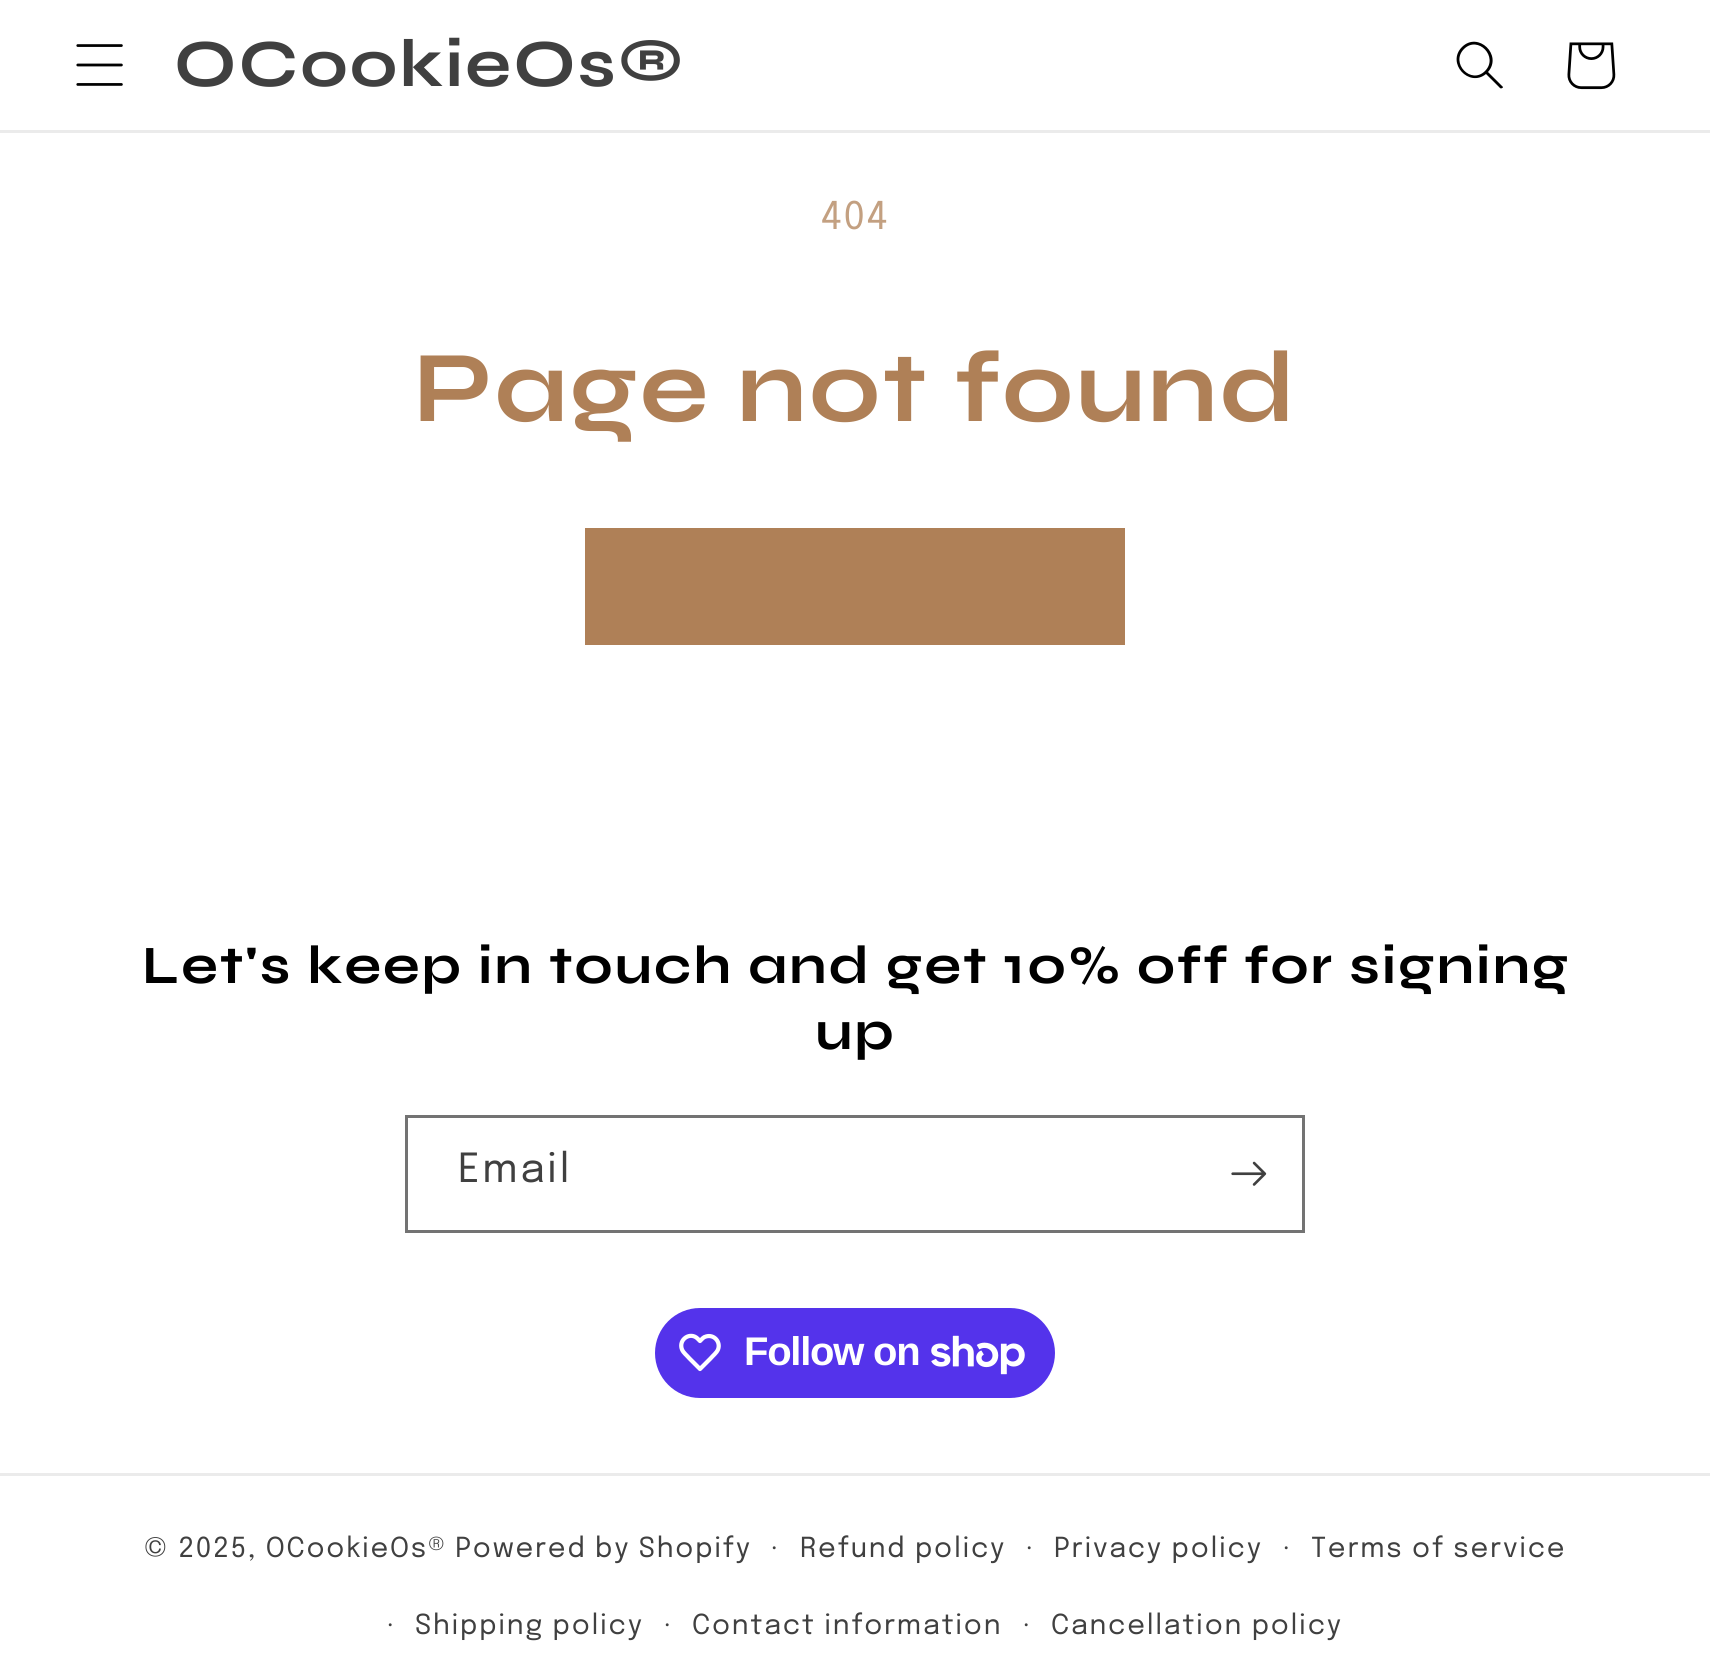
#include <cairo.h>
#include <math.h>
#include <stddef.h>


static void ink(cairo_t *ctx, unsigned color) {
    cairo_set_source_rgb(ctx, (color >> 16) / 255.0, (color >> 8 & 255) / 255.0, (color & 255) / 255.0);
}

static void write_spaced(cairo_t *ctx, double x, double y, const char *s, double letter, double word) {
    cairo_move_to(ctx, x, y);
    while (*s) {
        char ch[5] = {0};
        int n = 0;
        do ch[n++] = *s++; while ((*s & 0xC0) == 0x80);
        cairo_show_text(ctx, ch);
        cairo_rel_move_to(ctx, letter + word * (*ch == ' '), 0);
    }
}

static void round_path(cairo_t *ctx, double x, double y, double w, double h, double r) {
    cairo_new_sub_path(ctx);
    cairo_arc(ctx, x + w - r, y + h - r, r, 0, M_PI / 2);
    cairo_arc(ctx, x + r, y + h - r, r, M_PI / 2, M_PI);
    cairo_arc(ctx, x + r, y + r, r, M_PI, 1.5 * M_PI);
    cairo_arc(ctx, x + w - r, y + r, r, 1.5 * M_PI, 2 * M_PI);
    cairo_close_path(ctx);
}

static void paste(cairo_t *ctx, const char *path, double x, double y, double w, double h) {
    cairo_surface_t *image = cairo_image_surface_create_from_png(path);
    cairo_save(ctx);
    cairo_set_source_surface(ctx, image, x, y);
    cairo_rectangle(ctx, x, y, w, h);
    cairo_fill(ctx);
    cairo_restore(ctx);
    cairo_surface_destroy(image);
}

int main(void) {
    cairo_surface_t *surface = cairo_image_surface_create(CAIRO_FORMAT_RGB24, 1710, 1672);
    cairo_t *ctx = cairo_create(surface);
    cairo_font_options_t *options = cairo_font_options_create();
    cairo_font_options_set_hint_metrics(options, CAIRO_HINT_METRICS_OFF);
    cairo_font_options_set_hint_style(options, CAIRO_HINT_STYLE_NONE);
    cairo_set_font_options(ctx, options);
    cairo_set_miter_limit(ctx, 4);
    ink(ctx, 0xFFFFFF);
    cairo_paint(ctx);
    ink(ctx, 0xEBEBEB);
    cairo_rectangle(ctx, 0, 130, 1710, 3);
    cairo_fill(ctx);
    paste(ctx, "media/1.png", 76, 44, 47, 42);
    cairo_select_font_face(ctx, "Syne", CAIRO_FONT_SLANT_NORMAL, CAIRO_FONT_WEIGHT_BOLD);
    cairo_set_font_size(ctx, 67.5);
    ink(ctx, 0x404040);
    write_spaced(ctx, 174, 86, "OCookieOs®", 2.05, 0);
    ink(ctx, 0x000000);
    cairo_set_fill_rule(ctx, CAIRO_FILL_RULE_EVEN_ODD);
    cairo_new_path(ctx);
    cairo_move_to(ctx, 1485, 71);
    cairo_curve_to(ctx, 1471, 85, 1450, 63, 1464, 49);
    cairo_curve_to(ctx, 1478, 35, 1499, 57, 1485, 71);
    cairo_move_to(ctx, 1486, 74);
    cairo_curve_to(ctx, 1469, 88, 1446, 63, 1462, 47);
    cairo_curve_to(ctx, 1478, 31, 1503, 55, 1488, 72);
    cairo_line_to(ctx, 1503, 87);
    cairo_curve_to(ctx, 1503, 88, 1501, 89, 1500, 88);
    cairo_close_path(ctx);
    cairo_fill(ctx);
    paste(ctx, "media/2.png", 1567, 42, 49, 48);
    cairo_select_font_face(ctx, "Epilogue", CAIRO_FONT_SLANT_NORMAL, CAIRO_FONT_WEIGHT_NORMAL);
    cairo_set_font_size(ctx, 38);
    ink(ctx, 0xC3A081);
    write_spaced(ctx, 821, 229, "404", 1.5, 0);
    cairo_select_font_face(ctx, "Syne", CAIRO_FONT_SLANT_NORMAL, CAIRO_FONT_WEIGHT_BOLD);
    cairo_set_font_size(ctx, 101.25);
    ink(ctx, 0xAF8057);
    write_spaced(ctx, 413, 421, "Page not found", 2.05, 0);
    cairo_rectangle(ctx, 585, 528, 540, 117);
    cairo_fill(ctx);
    cairo_set_font_size(ctx, 54);
    ink(ctx, 0x000000);
    write_spaced(ctx, 142, 983, "Let's keep in touch and get 10% off for signing", 2.05, 0);
    write_spaced(ctx, 815, 1049, "up", 2.05, 0);
    cairo_rectangle(ctx, 406.5, 1116.5, 897, 115);
    ink(ctx, 0x737373);
    cairo_set_line_width(ctx, 3);
    cairo_stroke(ctx);
    cairo_select_font_face(ctx, "Epilogue", CAIRO_FONT_SLANT_NORMAL, CAIRO_FONT_WEIGHT_NORMAL);
    cairo_set_font_size(ctx, 40);
    ink(ctx, 0x404040);
    write_spaced(ctx, 458, 1182, "Email", 2.5, 0);
    paste(ctx, "media/3.png", 1231, 1161, 36, 25);
    ink(ctx, 0x5433EB);
    round_path(ctx, 655, 1308, 400, 90, 45);
    cairo_fill(ctx);
    cairo_new_path(ctx);
    cairo_move_to(ctx, 698, 1339);
    cairo_line_to(ctx, 700, 1341);
    cairo_curve_to(ctx, 702, 1339, 703.5, 1337, 706, 1336.5);
    cairo_curve_to(ctx, 714, 1334, 721, 1342, 718, 1349.5);
    cairo_curve_to(ctx, 716.5, 1353, 713, 1355.5, 710.5, 1358.5);
    cairo_line_to(ctx, 700, 1369);
    cairo_line_to(ctx, 689.5, 1358.5);
    cairo_curve_to(ctx, 687, 1355.5, 683.5, 1353, 682, 1349.5);
    cairo_curve_to(ctx, 678, 1339.5, 690.5, 1331, 698, 1339);
    cairo_close_path(ctx);
    ink(ctx, 0xFFFFFF);
    cairo_set_line_width(ctx, 4.2);
    cairo_set_line_join(ctx, CAIRO_LINE_JOIN_ROUND);
    cairo_stroke(ctx);
    cairo_select_font_face(ctx, "Liberation Sans", CAIRO_FONT_SLANT_NORMAL, CAIRO_FONT_WEIGHT_BOLD);
    write_spaced(ctx, 744, 1365, "Follow on", -1.25, 0);
    paste(ctx, "media/4.png", 931, 1335, 94, 40);
    ink(ctx, 0xEBEBEB);
    cairo_rectangle(ctx, 0, 1473, 1710, 3);
    cairo_fill(ctx);
    cairo_select_font_face(ctx, "Epilogue", CAIRO_FONT_SLANT_NORMAL, CAIRO_FONT_WEIGHT_NORMAL);
    cairo_set_font_size(ctx, 27.5);
    ink(ctx, 0x404040);
    write_spaced(ctx, 144, 1557, "© 2025, OCookieOs® Powered by Shopify", 1.75, 0);
    cairo_set_font_size(ctx, 25);
    write_spaced(ctx, 771, 1557, "·", 1.75, 0);
    cairo_set_font_size(ctx, 27.5);
    write_spaced(ctx, 800, 1557, "Refund policy", 1.75, 0);
    cairo_set_font_size(ctx, 25);
    write_spaced(ctx, 1026, 1557, "·", 1.75, 0);
    cairo_set_font_size(ctx, 27.5);
    write_spaced(ctx, 1054, 1557, "Privacy policy", 1.75, 0);
    cairo_set_font_size(ctx, 25);
    write_spaced(ctx, 1283, 1557, "·", 1.75, 0);
    cairo_set_font_size(ctx, 27.5);
    write_spaced(ctx, 1311, 1557, "Terms of service", 1.75, 0);
    cairo_set_font_size(ctx, 25);
    write_spaced(ctx, 387, 1634, "·", 1.75, 0);
    cairo_set_font_size(ctx, 27.5);
    write_spaced(ctx, 415, 1634, "Shipping policy", 1.75, 0);
    cairo_set_font_size(ctx, 25);
    write_spaced(ctx, 664, 1634, "·", 1.75, 0);
    cairo_set_font_size(ctx, 27.5);
    write_spaced(ctx, 692, 1634, "Contact information", 1.75, 0);
    cairo_set_font_size(ctx, 25);
    write_spaced(ctx, 1023, 1634, "·", 1.75, 0);
    cairo_set_font_size(ctx, 27.5);
    write_spaced(ctx, 1051, 1634, "Cancellation policy", 1.75, 0);
    cairo_surface_write_to_png(surface, "image.png");
    cairo_font_options_destroy(options);
    cairo_destroy(ctx);
    cairo_surface_destroy(surface);
    return 0;
}
